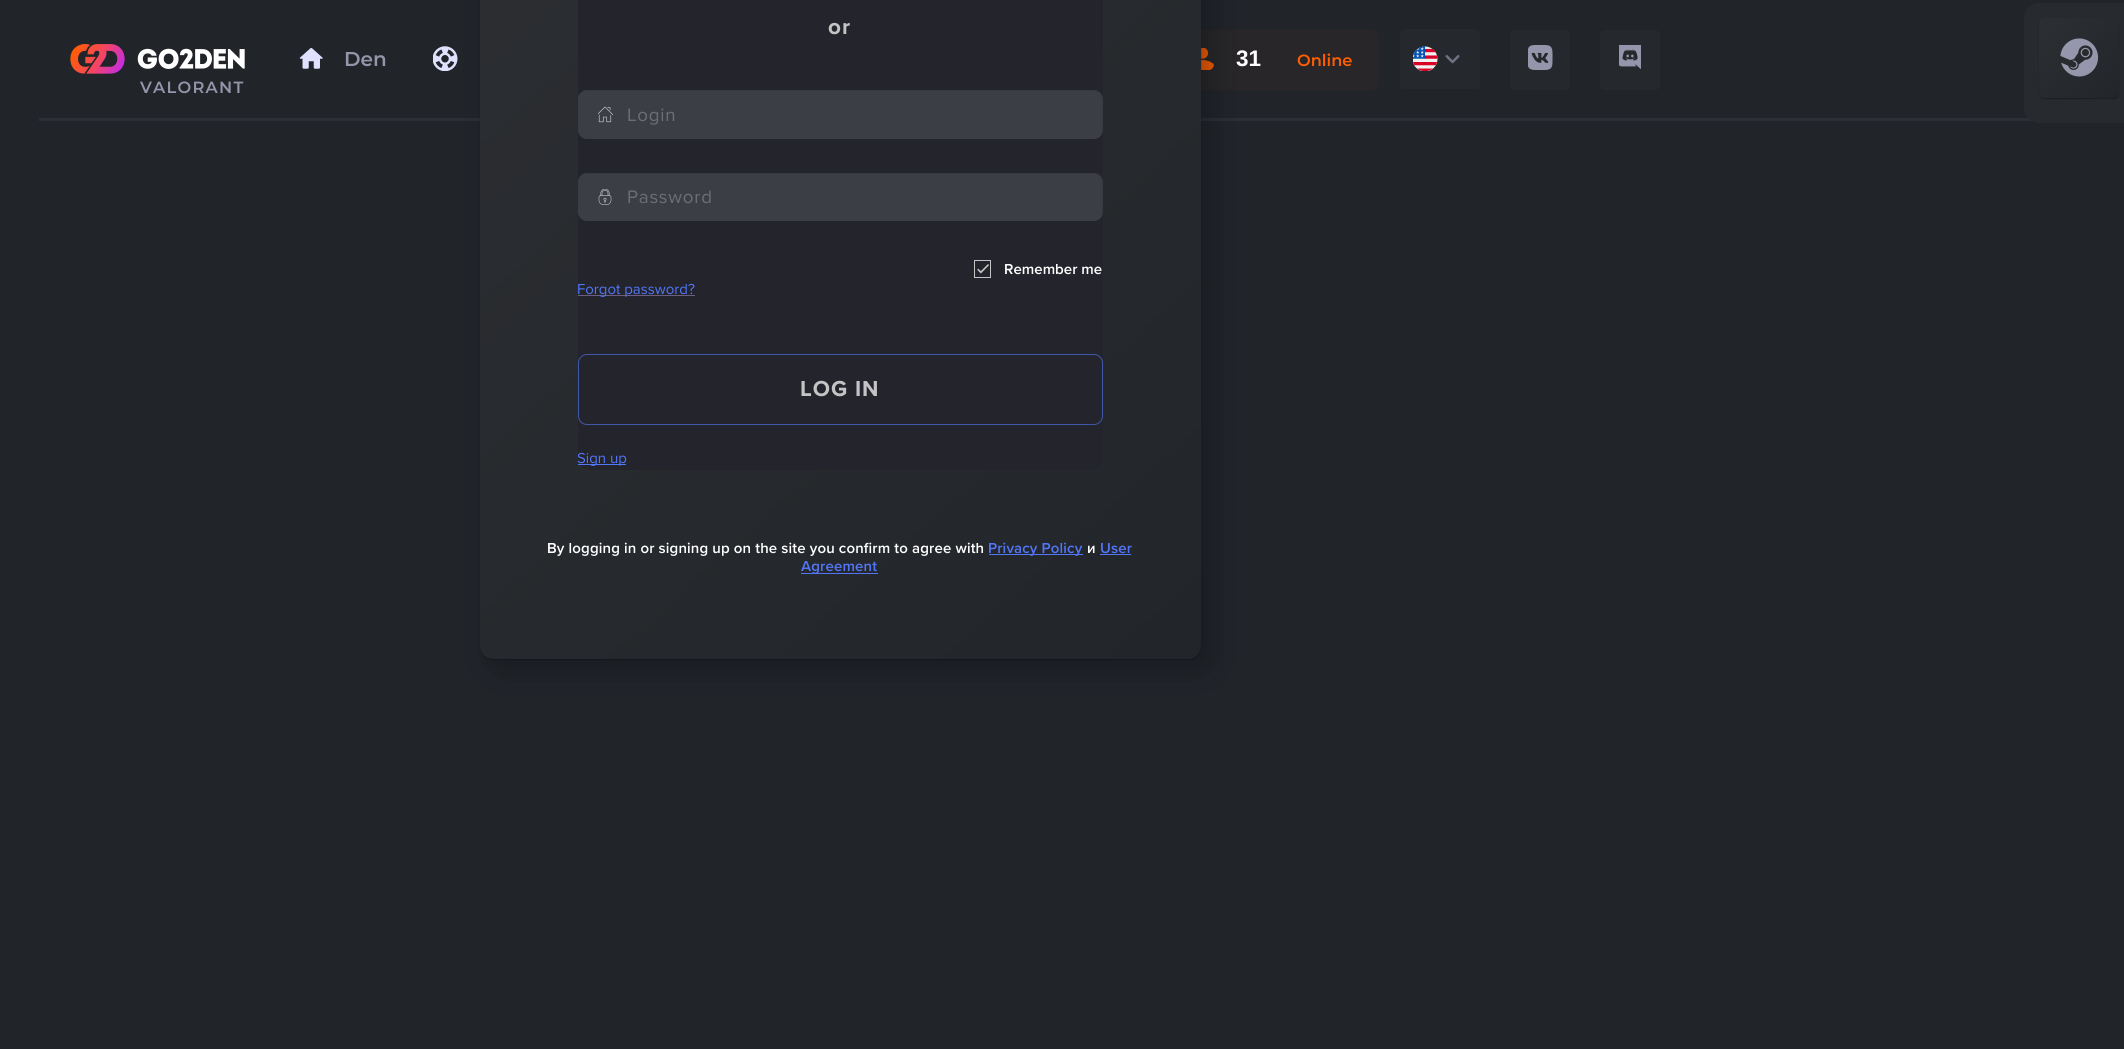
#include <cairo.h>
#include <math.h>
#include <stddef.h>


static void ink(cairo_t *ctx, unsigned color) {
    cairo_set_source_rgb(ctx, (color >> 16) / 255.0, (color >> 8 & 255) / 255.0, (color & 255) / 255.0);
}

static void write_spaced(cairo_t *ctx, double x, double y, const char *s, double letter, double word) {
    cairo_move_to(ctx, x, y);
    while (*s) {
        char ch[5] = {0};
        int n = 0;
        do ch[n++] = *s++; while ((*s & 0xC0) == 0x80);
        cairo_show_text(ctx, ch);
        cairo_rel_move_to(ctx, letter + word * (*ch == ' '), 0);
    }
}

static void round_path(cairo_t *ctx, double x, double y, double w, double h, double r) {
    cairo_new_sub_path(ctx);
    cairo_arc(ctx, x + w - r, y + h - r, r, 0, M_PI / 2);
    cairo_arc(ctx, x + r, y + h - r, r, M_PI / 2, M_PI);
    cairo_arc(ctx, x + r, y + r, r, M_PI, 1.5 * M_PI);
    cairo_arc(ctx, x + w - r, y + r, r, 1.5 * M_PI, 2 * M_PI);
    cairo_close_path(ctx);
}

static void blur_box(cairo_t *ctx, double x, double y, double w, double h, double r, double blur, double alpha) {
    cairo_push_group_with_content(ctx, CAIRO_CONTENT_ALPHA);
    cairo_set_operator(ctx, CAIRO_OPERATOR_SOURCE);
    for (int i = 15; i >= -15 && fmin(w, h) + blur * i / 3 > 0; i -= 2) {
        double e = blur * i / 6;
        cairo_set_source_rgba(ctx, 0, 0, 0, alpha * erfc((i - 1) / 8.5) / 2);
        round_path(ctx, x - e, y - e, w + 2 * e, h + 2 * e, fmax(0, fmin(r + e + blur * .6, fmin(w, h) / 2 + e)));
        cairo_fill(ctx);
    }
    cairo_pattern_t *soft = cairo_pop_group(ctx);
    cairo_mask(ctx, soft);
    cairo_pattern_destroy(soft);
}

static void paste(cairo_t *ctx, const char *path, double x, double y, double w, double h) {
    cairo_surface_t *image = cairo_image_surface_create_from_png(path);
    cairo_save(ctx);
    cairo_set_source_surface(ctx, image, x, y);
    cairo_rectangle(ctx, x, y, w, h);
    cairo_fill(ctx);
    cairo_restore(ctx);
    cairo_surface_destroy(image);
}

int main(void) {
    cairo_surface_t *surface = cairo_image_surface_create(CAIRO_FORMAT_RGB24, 2124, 1049);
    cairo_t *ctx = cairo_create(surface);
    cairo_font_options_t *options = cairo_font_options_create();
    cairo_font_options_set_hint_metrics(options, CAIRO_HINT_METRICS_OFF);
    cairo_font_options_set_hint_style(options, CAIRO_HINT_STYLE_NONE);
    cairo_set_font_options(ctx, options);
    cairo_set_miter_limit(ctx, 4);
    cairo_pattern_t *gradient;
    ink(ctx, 0x212429);
    cairo_paint(ctx);
    ink(ctx, 0x2C2F36);
    cairo_rectangle(ctx, 39, 118, 1993, 3);
    cairo_fill(ctx);
    ink(ctx, 0x282628);
    round_path(ctx, 1175, 30, 203, 60, 5);
    cairo_fill(ctx);
    paste(ctx, "media/6.png", 1201, 48, 13, 22);
    ink(ctx, 0x090E14);
    blur_box(ctx, 480, -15, 721, 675, 13, 0.5, 0.4);
    paste(ctx, "media/5.png", 433, 46, 25, 25);
    blur_box(ctx, 490, -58, 721, 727, 13, 15, 0.4);
    gradient = cairo_pattern_create_linear(449, -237, 1231, 632);
    cairo_pattern_add_color_stop_rgba(gradient, 0.01, 0.176, 0.184, 0.2, 1);
    cairo_pattern_add_color_stop_rgba(gradient, 0.52, 0.153, 0.165, 0.18, 1);
    cairo_pattern_add_color_stop_rgba(gradient, 1, 0.133, 0.145, 0.161, 1);
    cairo_set_source(ctx, gradient);
    cairo_pattern_destroy(gradient);
    cairo_new_path(ctx);
    cairo_move_to(ctx, 480, 0);
    cairo_line_to(ctx, 1201, 0);
    cairo_line_to(ctx, 1201, 646);
    cairo_curve_to(ctx, 1201, 653, 1195, 659, 1188, 659);
    cairo_line_to(ctx, 493, 659);
    cairo_curve_to(ctx, 486, 659, 480, 653, 480, 646);
    cairo_close_path(ctx);
    cairo_fill(ctx);
    ink(ctx, 0x23242C);
    cairo_new_path(ctx);
    cairo_move_to(ctx, 578, 0);
    cairo_line_to(ctx, 1103, 0);
    cairo_line_to(ctx, 1103, 457);
    cairo_curve_to(ctx, 1103, 464, 1097, 470, 1090, 470);
    cairo_line_to(ctx, 591, 470);
    cairo_curve_to(ctx, 584, 470, 578, 464, 578, 457);
    cairo_close_path(ctx);
    cairo_fill(ctx);
    cairo_select_font_face(ctx, "Proxima Nova", CAIRO_FONT_SLANT_NORMAL, CAIRO_FONT_WEIGHT_BOLD);
    cairo_set_font_size(ctx, 22.5);
    ink(ctx, 0xC4C4C4);
    write_spaced(ctx, 828, 34, "or", 1, 0);
    ink(ctx, 0x3C3E46);
    round_path(ctx, 578, 90, 525, 49, 9);
    cairo_fill(ctx);
    paste(ctx, "media/1.png", 598, 106, 16, 17);
    cairo_set_source_rgba(ctx, 0, 0, 0, 0.07);
    cairo_new_path(ctx);
    cairo_move_to(ctx, 586, 91);
    cairo_line_to(ctx, 1093, 91);
    cairo_curve_to(ctx, 1098, 91, 1102, 95, 1102, 100);
    cairo_line_to(ctx, 1102, 131);
    cairo_curve_to(ctx, 1102, 133, 1101, 135, 1100, 137);
    cairo_curve_to(ctx, 1102, 135, 1103, 133, 1103, 130);
    cairo_line_to(ctx, 1103, 99);
    cairo_curve_to(ctx, 1103, 94, 1099, 90, 1094, 90);
    cairo_line_to(ctx, 587, 90);
    cairo_curve_to(ctx, 584, 90, 582, 91, 580, 93);
    cairo_curve_to(ctx, 582, 92, 584, 91, 586, 91);
    cairo_close_path(ctx);
    cairo_fill(ctx);
    cairo_select_font_face(ctx, "Proxima Nova", CAIRO_FONT_SLANT_NORMAL, CAIRO_FONT_WEIGHT_NORMAL);
    cairo_set_font_size(ctx, 18.75);
    ink(ctx, 0x6D6E74);
    write_spaced(ctx, 627, 121, "Login", 0.75, 0);
    ink(ctx, 0x3C3E46);
    round_path(ctx, 578, 173, 525, 48, 9);
    cairo_fill(ctx);
    paste(ctx, "media/2.png", 598, 189, 14, 16);
    cairo_set_source_rgba(ctx, 0, 0, 0, 0.07);
    cairo_new_path(ctx);
    cairo_move_to(ctx, 586, 174);
    cairo_line_to(ctx, 1093, 174);
    cairo_curve_to(ctx, 1098, 174, 1102, 178, 1102, 182);
    cairo_line_to(ctx, 1102, 214);
    cairo_line_to(ctx, 1101, 217);
    cairo_curve_to(ctx, 1102, 216, 1103, 214, 1103, 212);
    cairo_line_to(ctx, 1103, 182);
    cairo_curve_to(ctx, 1103, 177, 1099, 173, 1094, 173);
    cairo_line_to(ctx, 587, 173);
    cairo_curve_to(ctx, 584, 173, 582, 174, 580, 176);
    cairo_curve_to(ctx, 582, 175, 584, 174, 586, 174);
    cairo_close_path(ctx);
    cairo_fill(ctx);
    ink(ctx, 0x6D6E74);
    write_spaced(ctx, 627, 203, "Password", 0.75, 0);
    paste(ctx, "media/3.png", 977, 264, 12, 10);
    cairo_rectangle(ctx, 974.5, 260.5, 16, 17);
    ink(ctx, 0xC4C4C4);
    cairo_set_line_width(ctx, 1);
    cairo_stroke(ctx);
    cairo_select_font_face(ctx, "Proxima Nova SemiBold", CAIRO_FONT_SLANT_NORMAL, CAIRO_FONT_WEIGHT_NORMAL);
    cairo_set_font_size(ctx, 15);
    ink(ctx, 0xFFFFFF);
    cairo_move_to(ctx, 1004, 274);
    cairo_show_text(ctx, "Remember me");
    ink(ctx, 0x6B5E80);
    cairo_rectangle(ctx, 578, 295, 117, 1);
    cairo_fill(ctx);
    cairo_select_font_face(ctx, "Proxima Nova", CAIRO_FONT_SLANT_NORMAL, CAIRO_FONT_WEIGHT_NORMAL);
    ink(ctx, 0x5276F8);
    cairo_move_to(ctx, 577, 294);
    cairo_show_text(ctx, "Forgot password?");
    round_path(ctx, 578.5, 354.5, 524, 70, 8.5);
    ink(ctx, 0x4057AB);
    cairo_stroke(ctx);
    cairo_select_font_face(ctx, "Proxima Nova", CAIRO_FONT_SLANT_NORMAL, CAIRO_FONT_WEIGHT_BOLD);
    cairo_set_font_size(ctx, 22.5);
    ink(ctx, 0xC4C4C4);
    write_spaced(ctx, 800, 396, "LOG IN", 1, 0);
    ink(ctx, 0x5276F8);
    cairo_rectangle(ctx, 578, 464, 48, 1);
    cairo_fill(ctx);
    cairo_select_font_face(ctx, "Proxima Nova", CAIRO_FONT_SLANT_NORMAL, CAIRO_FONT_WEIGHT_NORMAL);
    cairo_set_font_size(ctx, 15);
    cairo_move_to(ctx, 577, 463);
    cairo_show_text(ctx, "Sign up");
    cairo_select_font_face(ctx, "Proxima Nova SemiBold", CAIRO_FONT_SLANT_NORMAL, CAIRO_FONT_WEIGHT_NORMAL);
    ink(ctx, 0xFFFFFF);
    write_spaced(ctx, 547, 553, "By logging in or signing up on the site you confirm to agree with", 0.15, 0);
    ink(ctx, 0x5276F8);
    cairo_rectangle(ctx, 989, 554, 94, 1);
    cairo_fill(ctx);
    write_spaced(ctx, 988, 553, "Privacy Policy", 0.15, 0);
    ink(ctx, 0xFFFFFF);
    write_spaced(ctx, 1087, 553, "и", 0.15, 0);
    ink(ctx, 0x5276F8);
    write_spaced(ctx, 1100, 553, "User", 0.15, 0);
    cairo_rectangle(ctx, 1100, 554, 31, 1);
    cairo_fill(ctx);
    cairo_rectangle(ctx, 801, 573, 77, 1);
    cairo_fill(ctx);
    write_spaced(ctx, 801, 571, "Agreement", 0.15, 0);
    paste(ctx, "media/4.png", 299, 48, 24, 21);
    cairo_select_font_face(ctx, "Montserrat SemiBold", CAIRO_FONT_SLANT_NORMAL, CAIRO_FONT_WEIGHT_NORMAL);
    cairo_set_font_size(ctx, 20);
    ink(ctx, 0x9495A9);
    cairo_move_to(ctx, 344, 66);
    cairo_show_text(ctx, "Den");
    cairo_select_font_face(ctx, "Liberation Sans", CAIRO_FONT_SLANT_NORMAL, CAIRO_FONT_WEIGHT_BOLD);
    cairo_set_font_size(ctx, 22.5);
    ink(ctx, 0xFFFFFF);
    cairo_move_to(ctx, 1236, 66);
    cairo_show_text(ctx, "31");
    cairo_select_font_face(ctx, "Montserrat SemiBold", CAIRO_FONT_SLANT_NORMAL, CAIRO_FONT_WEIGHT_NORMAL);
    cairo_set_font_size(ctx, 16.25);
    ink(ctx, 0xFF5E00);
    cairo_move_to(ctx, 1297, 66);
    cairo_show_text(ctx, "Online");
    ink(ctx, 0x25282D);
    round_path(ctx, 1400, 29, 80, 60, 5);
    cairo_fill(ctx);
    paste(ctx, "media/7.png", 1413, 46, 25, 25);
    paste(ctx, "media/8.png", 1445, 55, 15, 9);
    round_path(ctx, 1510, 30, 60, 60, 5);
    cairo_fill(ctx);
    paste(ctx, "media/9.png", 1528, 45, 25, 25);
    round_path(ctx, 1600, 30, 60, 60, 5);
    cairo_fill(ctx);
    paste(ctx, "media/10.png", 1619, 45, 22, 24);
    ink(ctx, 0x272A2E);
    round_path(ctx, 2024, 3, 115, 120, 15);
    cairo_fill(ctx);
    ink(ctx, 0x090E14);
    blur_box(ctx, 2039, 19, 80, 80, 5, 0.5, 0.4);
    gradient = cairo_pattern_create_linear(2039, 18, 2119, 98);
    cairo_pattern_add_color_stop_rgba(gradient, 0.01, 0.176, 0.184, 0.2, 1);
    cairo_pattern_add_color_stop_rgba(gradient, 0.52, 0.153, 0.165, 0.18, 1);
    cairo_pattern_add_color_stop_rgba(gradient, 1, 0.133, 0.145, 0.161, 1);
    cairo_set_source(ctx, gradient);
    cairo_pattern_destroy(gradient);
    round_path(ctx, 2039, 18, 80, 80, 5);
    cairo_fill(ctx);
    paste(ctx, "media/11.png", 2060, 38, 39, 39);
    paste(ctx, "media/12.png", 70, 44, 175, 30);
    ink(ctx, 0x9495A9);
    write_spaced(ctx, 140, 93, "VALORANT", 1.25, 0);
    cairo_surface_write_to_png(surface, "image.png");
    cairo_font_options_destroy(options);
    cairo_destroy(ctx);
    cairo_surface_destroy(surface);
    return 0;
}
